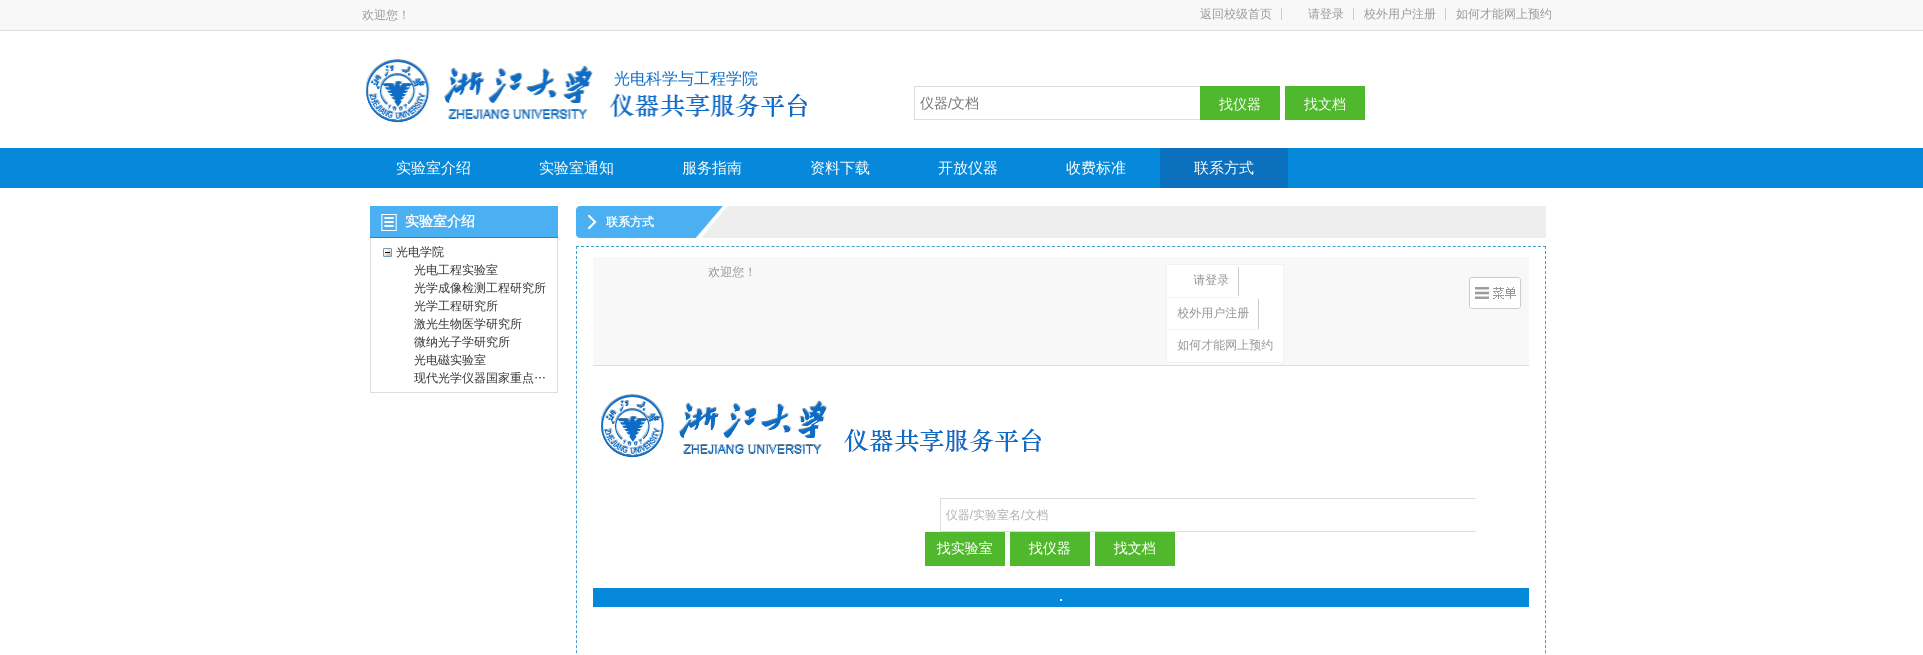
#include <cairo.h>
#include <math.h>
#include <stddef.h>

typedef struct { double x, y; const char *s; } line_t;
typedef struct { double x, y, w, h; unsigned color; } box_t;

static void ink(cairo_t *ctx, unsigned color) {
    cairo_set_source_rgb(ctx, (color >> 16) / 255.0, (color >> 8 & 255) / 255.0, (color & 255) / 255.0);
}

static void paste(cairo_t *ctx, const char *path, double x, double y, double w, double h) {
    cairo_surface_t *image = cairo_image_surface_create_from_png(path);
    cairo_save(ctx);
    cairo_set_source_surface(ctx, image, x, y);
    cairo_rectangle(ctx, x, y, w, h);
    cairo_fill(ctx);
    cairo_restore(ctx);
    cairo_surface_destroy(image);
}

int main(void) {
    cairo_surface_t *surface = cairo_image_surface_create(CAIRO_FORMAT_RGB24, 1923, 655);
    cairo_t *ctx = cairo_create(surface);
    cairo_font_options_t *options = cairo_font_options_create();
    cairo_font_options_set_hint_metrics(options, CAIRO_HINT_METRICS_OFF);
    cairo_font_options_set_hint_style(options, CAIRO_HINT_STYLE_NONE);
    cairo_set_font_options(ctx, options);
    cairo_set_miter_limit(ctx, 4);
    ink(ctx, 0xFFFFFF);
    cairo_paint(ctx);
    ink(ctx, 0xF8F8F8);
    cairo_rectangle(ctx, 0, 0, 1923, 30);
    cairo_fill(ctx);
    ink(ctx, 0xDDDDDD);
    cairo_rectangle(ctx, 0, 30, 1923, 1);
    cairo_fill(ctx);
    cairo_select_font_face(ctx, "WenQuanYi Zen Hei Medium", CAIRO_FONT_SLANT_NORMAL, CAIRO_FONT_WEIGHT_NORMAL);
    cairo_set_font_size(ctx, 12);
    ink(ctx, 0x999999);
    cairo_move_to(ctx, 362, 19);
    cairo_show_text(ctx, "欢迎您！");
    cairo_move_to(ctx, 1200, 18);
    cairo_show_text(ctx, "返回校级首页");
    ink(ctx, 0xCCCCCC);
    cairo_rectangle(ctx, 1281, 8, 1, 12);
    cairo_fill(ctx);
    ink(ctx, 0x999999);
    cairo_move_to(ctx, 1308, 18);
    cairo_show_text(ctx, "请登录");
    ink(ctx, 0xCCCCCC);
    cairo_rectangle(ctx, 1353, 8, 1, 12);
    cairo_fill(ctx);
    ink(ctx, 0x999999);
    cairo_move_to(ctx, 1364, 18);
    cairo_show_text(ctx, "校外用户注册");
    ink(ctx, 0xCCCCCC);
    cairo_rectangle(ctx, 1445, 8, 1, 12);
    cairo_fill(ctx);
    ink(ctx, 0x999999);
    cairo_move_to(ctx, 1456, 18);
    cairo_show_text(ctx, "如何才能网上预约");
    paste(ctx, "media/1.png", 366, 59, 441, 64);
    cairo_set_font_size(ctx, 16);
    ink(ctx, 0x0D6CC6);
    cairo_move_to(ctx, 614, 84);
    cairo_show_text(ctx, "光电科学与工程学院");
    {
        static const box_t items[] = {
            {914, 86, 286, 1, 0xDDDDDD},
            {914, 119, 286, 1, 0xDDDDDD},
            {914, 86, 1, 34, 0xDDDDDD},
        };
        for (size_t i = 0; i < sizeof items / sizeof *items; i++) {
            ink(ctx, items[i].color);
            cairo_rectangle(ctx, items[i].x, items[i].y, items[i].w, items[i].h);
            cairo_fill(ctx);
        }
    }
    cairo_set_font_size(ctx, 14);
    ink(ctx, 0x757575);
    cairo_move_to(ctx, 920, 108);
    cairo_show_text(ctx, "仪器");
    cairo_select_font_face(ctx, "Liberation Sans", CAIRO_FONT_SLANT_NORMAL, CAIRO_FONT_WEIGHT_NORMAL);
    cairo_move_to(ctx, 948, 108);
    cairo_show_text(ctx, "/");
    cairo_select_font_face(ctx, "WenQuanYi Zen Hei Medium", CAIRO_FONT_SLANT_NORMAL, CAIRO_FONT_WEIGHT_NORMAL);
    cairo_move_to(ctx, 951, 108);
    cairo_show_text(ctx, "文档");
    ink(ctx, 0x50B82C);
    cairo_rectangle(ctx, 1200, 86, 80, 34);
    cairo_fill(ctx);
    ink(ctx, 0xFFFFFF);
    cairo_move_to(ctx, 1219, 109);
    cairo_show_text(ctx, "找仪器");
    ink(ctx, 0x50B82C);
    cairo_rectangle(ctx, 1285, 86, 80, 34);
    cairo_fill(ctx);
    ink(ctx, 0xFFFFFF);
    cairo_move_to(ctx, 1304, 109);
    cairo_show_text(ctx, "找文档");
    ink(ctx, 0x0689DB);
    cairo_rectangle(ctx, 0, 148, 1923, 40);
    cairo_fill(ctx);
    cairo_set_font_size(ctx, 15);
    ink(ctx, 0xFFFFFF);
    {
        static const line_t items[] = {
            {396, 173, "实验室介绍"},
            {539, 173, "实验室通知"},
            {682, 173, "服务指南"},
            {810, 173, "资料下载"},
            {938, 173, "开放仪器"},
            {1066, 173, "收费标准"},
        };
        for (size_t i = 0; i < sizeof items / sizeof *items; i++) {
            cairo_move_to(ctx, items[i].x, items[i].y);
            cairo_show_text(ctx, items[i].s);
        }
    }
    ink(ctx, 0x0B70BD);
    cairo_rectangle(ctx, 1160, 148, 128, 40);
    cairo_fill(ctx);
    ink(ctx, 0xFFFFFF);
    cairo_move_to(ctx, 1194, 173);
    cairo_show_text(ctx, "联系方式");
    ink(ctx, 0x4AB0F1);
    cairo_rectangle(ctx, 370, 206, 188, 31);
    cairo_fill(ctx);
    paste(ctx, "media/2.png", 381, 214, 16, 17);
    ink(ctx, 0x1E89CA);
    cairo_rectangle(ctx, 370, 237, 188, 1);
    cairo_fill(ctx);
    cairo_select_font_face(ctx, "WenQuanYi Zen Hei", CAIRO_FONT_SLANT_NORMAL, CAIRO_FONT_WEIGHT_BOLD);
    cairo_set_font_size(ctx, 14);
    ink(ctx, 0xFFFFFF);
    cairo_move_to(ctx, 405, 226);
    cairo_show_text(ctx, "实验室介绍");
    {
        static const box_t items[] = {
            {557, 238, 1, 155, 0xDDDDDD},
            {370, 392, 188, 1, 0xDDDDDD},
            {370, 238, 1, 155, 0xDDDDDD},
        };
        for (size_t i = 0; i < sizeof items / sizeof *items; i++) {
            ink(ctx, items[i].color);
            cairo_rectangle(ctx, items[i].x, items[i].y, items[i].w, items[i].h);
            cairo_fill(ctx);
        }
    }
    paste(ctx, "media/3.png", 383, 248, 9, 9);
    cairo_select_font_face(ctx, "WenQuanYi Zen Hei Medium", CAIRO_FONT_SLANT_NORMAL, CAIRO_FONT_WEIGHT_NORMAL);
    cairo_set_font_size(ctx, 12);
    ink(ctx, 0x333333);
    {
        static const line_t items[] = {
            {396, 256, "光电学院"},
            {414, 274, "光电工程实验室"},
            {414, 292, "光学成像检测工程研究所"},
            {414, 310, "光学工程研究所"},
            {414, 328, "激光生物医学研究所"},
            {414, 346, "微纳光子学研究所"},
            {414, 364, "光电磁实验室"},
            {414, 382, "现代光学仪器国家重点…"},
        };
        for (size_t i = 0; i < sizeof items / sizeof *items; i++) {
            cairo_move_to(ctx, items[i].x, items[i].y);
            cairo_show_text(ctx, items[i].s);
        }
    }
    ink(ctx, 0xEEEEEE);
    cairo_rectangle(ctx, 728, 206, 818, 32);
    cairo_fill(ctx);
    paste(ctx, "media/4.png", 576, 206, 152, 32);
    cairo_select_font_face(ctx, "WenQuanYi Zen Hei", CAIRO_FONT_SLANT_NORMAL, CAIRO_FONT_WEIGHT_BOLD);
    ink(ctx, 0xFFFFFF);
    cairo_move_to(ctx, 606, 226);
    cairo_show_text(ctx, "联系方式");
    cairo_new_path(ctx);
    cairo_move_to(ctx, 576, 246.5);
    cairo_line_to(ctx, 1546, 246.5);
    ink(ctx, 0x3F9FD0);
    cairo_set_line_width(ctx, 1);
    cairo_set_dash(ctx, (double[]){3, 2.01}, 2, 0);
    cairo_stroke(ctx);
    cairo_new_path(ctx);
    cairo_move_to(ctx, 1545.5, 246);
    cairo_line_to(ctx, 1545.5, 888);
    cairo_set_dash(ctx, (double[]){3, 1.99}, 2, 0);
    cairo_stroke(ctx);
    cairo_new_path(ctx);
    cairo_move_to(ctx, 576.5, 246);
    cairo_line_to(ctx, 576.5, 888);
    cairo_stroke(ctx);
    paste(ctx, "media/5.png", 593, 257, 936, 350);
    cairo_surface_write_to_png(surface, "image.png");
    cairo_font_options_destroy(options);
    cairo_destroy(ctx);
    cairo_surface_destroy(surface);
    return 0;
}
